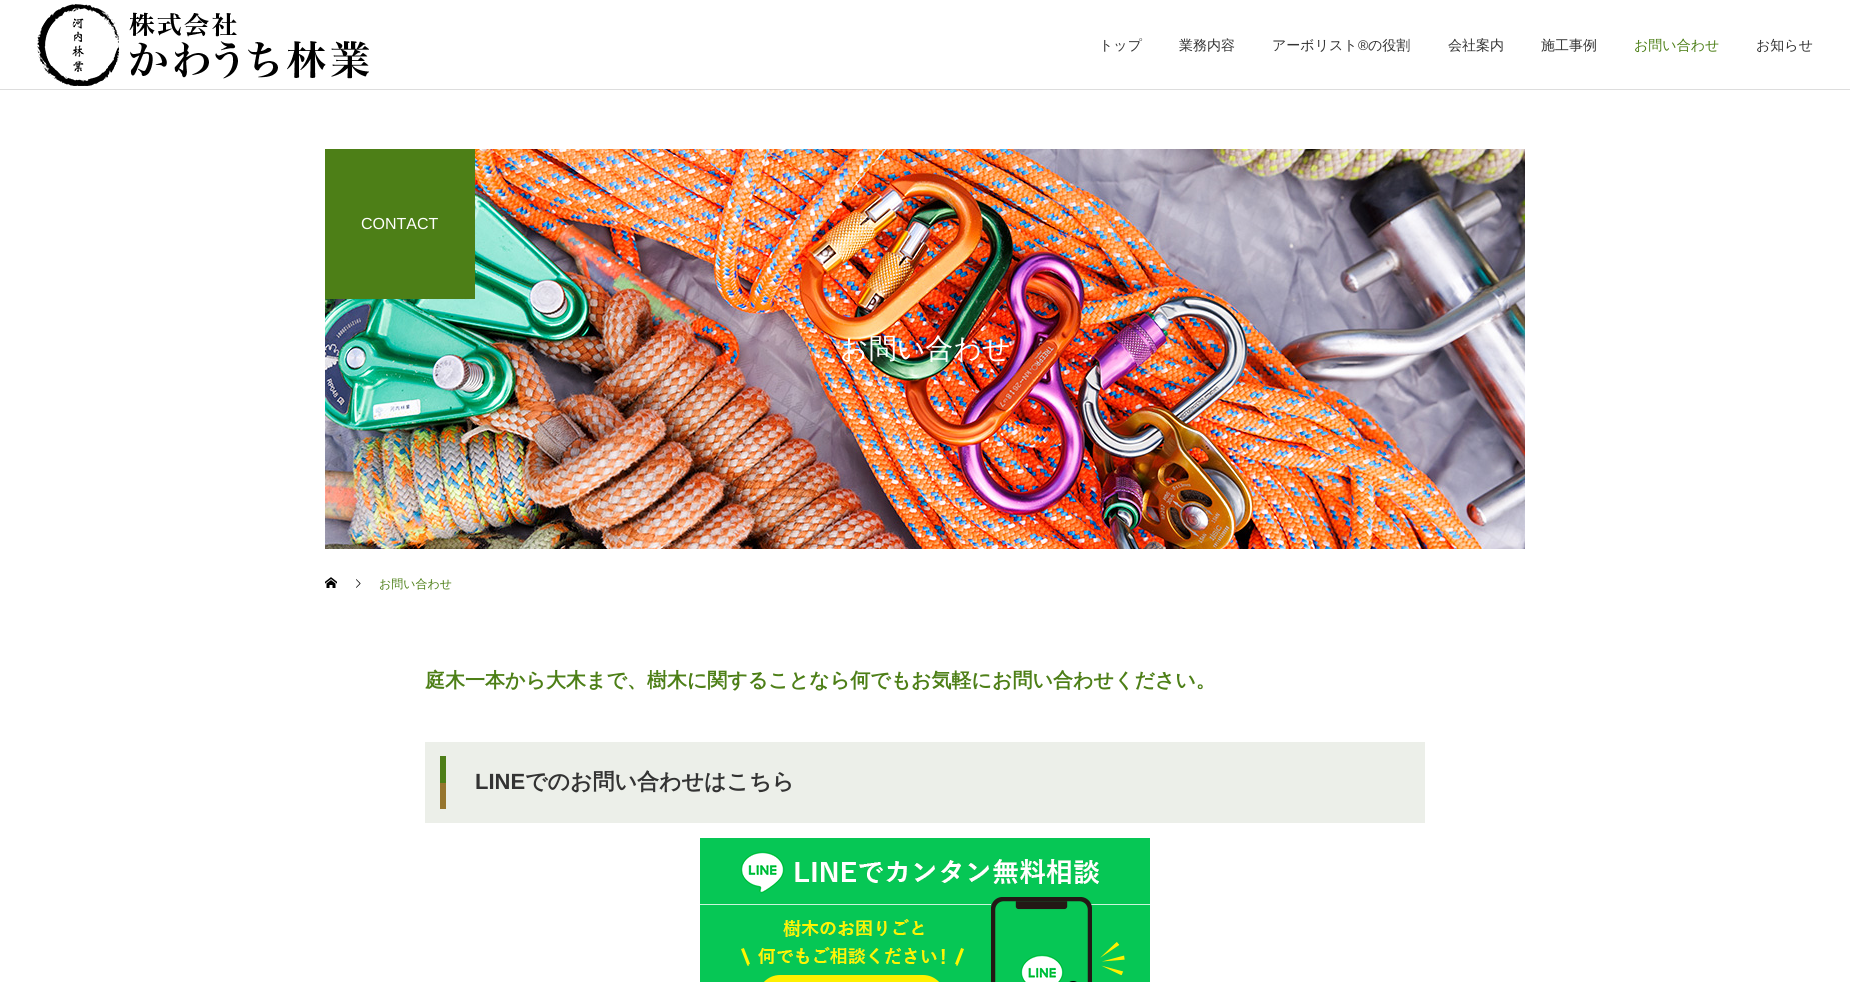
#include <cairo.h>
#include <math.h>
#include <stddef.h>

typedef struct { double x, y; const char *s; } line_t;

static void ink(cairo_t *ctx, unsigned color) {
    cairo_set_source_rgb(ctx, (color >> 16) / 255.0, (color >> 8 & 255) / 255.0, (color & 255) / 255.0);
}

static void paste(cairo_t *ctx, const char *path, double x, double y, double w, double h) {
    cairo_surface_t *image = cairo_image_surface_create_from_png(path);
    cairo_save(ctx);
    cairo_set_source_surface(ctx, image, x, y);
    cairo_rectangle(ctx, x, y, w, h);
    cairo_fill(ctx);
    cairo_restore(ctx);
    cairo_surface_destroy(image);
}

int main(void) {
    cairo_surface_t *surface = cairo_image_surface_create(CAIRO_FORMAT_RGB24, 1850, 982);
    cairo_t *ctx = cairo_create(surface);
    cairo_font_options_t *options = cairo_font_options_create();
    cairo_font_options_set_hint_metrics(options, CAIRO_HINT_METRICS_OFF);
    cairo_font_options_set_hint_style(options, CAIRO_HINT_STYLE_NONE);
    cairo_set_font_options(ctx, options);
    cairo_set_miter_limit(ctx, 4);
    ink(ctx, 0xFFFFFF);
    cairo_paint(ctx);
    ink(ctx, 0xDDDDDD);
    cairo_rectangle(ctx, 0, 89, 1850, 1);
    cairo_fill(ctx);
    paste(ctx, "media/1.png", 37, 4, 332, 82);
    cairo_select_font_face(ctx, "WenQuanYi Zen Hei Medium", CAIRO_FONT_SLANT_NORMAL, CAIRO_FONT_WEIGHT_NORMAL);
    cairo_set_font_size(ctx, 14);
    ink(ctx, 0x333333);
    {
        static const line_t items[] = {
            {1099, 50, "トップ"},
            {1179, 50, "業務内容"},
            {1272, 50, "アーボリスト"},
        };
        for (size_t i = 0; i < sizeof items / sizeof *items; i++) {
            cairo_move_to(ctx, items[i].x, items[i].y);
            cairo_show_text(ctx, items[i].s);
        }
    }
    cairo_select_font_face(ctx, "Liberation Sans", CAIRO_FONT_SLANT_NORMAL, CAIRO_FONT_WEIGHT_NORMAL);
    cairo_move_to(ctx, 1358, 50);
    cairo_show_text(ctx, "®");
    cairo_select_font_face(ctx, "WenQuanYi Zen Hei Medium", CAIRO_FONT_SLANT_NORMAL, CAIRO_FONT_WEIGHT_NORMAL);
    {
        static const line_t items[] = {
            {1368, 50, "の役割"},
            {1448, 50, "会社案内"},
            {1541, 50, "施工事例"},
        };
        for (size_t i = 0; i < sizeof items / sizeof *items; i++) {
            cairo_move_to(ctx, items[i].x, items[i].y);
            cairo_show_text(ctx, items[i].s);
        }
    }
    ink(ctx, 0x4D7F17);
    cairo_move_to(ctx, 1634, 50);
    cairo_show_text(ctx, "お問い合わせ");
    ink(ctx, 0x333333);
    cairo_move_to(ctx, 1756, 50);
    cairo_show_text(ctx, "お知らせ");
    paste(ctx, "media/2.png", 325, 149, 1200, 400);
    ink(ctx, 0x4D7F17);
    cairo_rectangle(ctx, 325, 149, 150, 150);
    cairo_fill(ctx);
    cairo_select_font_face(ctx, "Liberation Sans", CAIRO_FONT_SLANT_NORMAL, CAIRO_FONT_WEIGHT_NORMAL);
    cairo_set_font_size(ctx, 16);
    ink(ctx, 0xFFFFFF);
    cairo_move_to(ctx, 361, 229);
    cairo_show_text(ctx, "CONTACT");
    cairo_select_font_face(ctx, "WenQuanYi Zen Hei Medium", CAIRO_FONT_SLANT_NORMAL, CAIRO_FONT_WEIGHT_NORMAL);
    cairo_set_font_size(ctx, 28);
    cairo_move_to(ctx, 840, 358);
    cairo_show_text(ctx, "お問い合わせ");
    paste(ctx, "media/3.png", 325, 577, 12, 11);
    paste(ctx, "media/4.png", 356, 579, 5, 9);
    cairo_set_font_size(ctx, 12);
    ink(ctx, 0x4D7F17);
    cairo_move_to(ctx, 379, 588);
    cairo_show_text(ctx, "お問い合わせ");
    cairo_select_font_face(ctx, "WenQuanYi Zen Hei", CAIRO_FONT_SLANT_NORMAL, CAIRO_FONT_WEIGHT_BOLD);
    cairo_set_font_size(ctx, 20);
    cairo_move_to(ctx, 425, 687);
    cairo_show_text(ctx, "庭木一本から大木まで、樹木に関することなら何でもお気軽にお問い合わせください。");
    ink(ctx, 0xECEFE9);
    cairo_rectangle(ctx, 425, 742, 1000, 81);
    cairo_fill(ctx);
    paste(ctx, "media/5.png", 440, 756, 6, 53);
    cairo_select_font_face(ctx, "Liberation Sans", CAIRO_FONT_SLANT_NORMAL, CAIRO_FONT_WEIGHT_BOLD);
    cairo_set_font_size(ctx, 22);
    ink(ctx, 0x333333);
    cairo_move_to(ctx, 475, 789);
    cairo_show_text(ctx, "LINE");
    cairo_select_font_face(ctx, "WenQuanYi Zen Hei", CAIRO_FONT_SLANT_NORMAL, CAIRO_FONT_WEIGHT_BOLD);
    cairo_move_to(ctx, 525, 789);
    cairo_show_text(ctx, "でのお問い合わせはこちら");
    paste(ctx, "media/6.png", 700, 838, 450, 144);
    cairo_surface_write_to_png(surface, "image.png");
    cairo_font_options_destroy(options);
    cairo_destroy(ctx);
    cairo_surface_destroy(surface);
    return 0;
}
